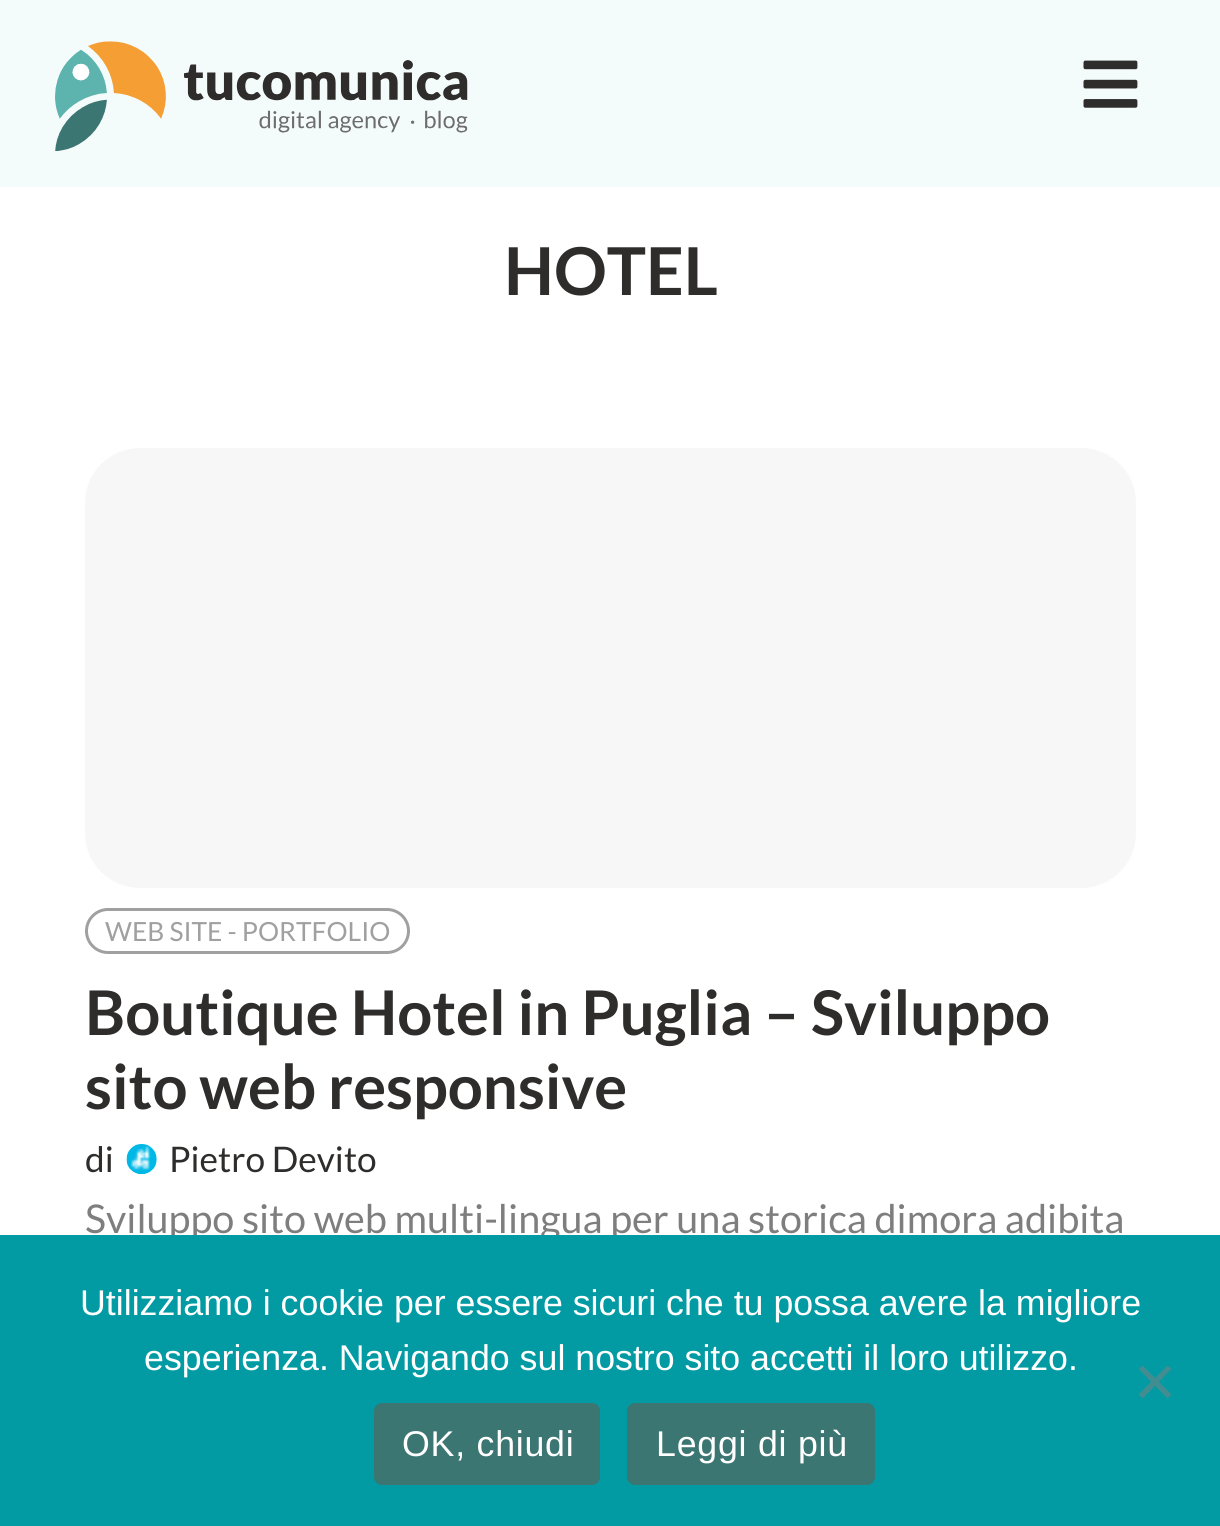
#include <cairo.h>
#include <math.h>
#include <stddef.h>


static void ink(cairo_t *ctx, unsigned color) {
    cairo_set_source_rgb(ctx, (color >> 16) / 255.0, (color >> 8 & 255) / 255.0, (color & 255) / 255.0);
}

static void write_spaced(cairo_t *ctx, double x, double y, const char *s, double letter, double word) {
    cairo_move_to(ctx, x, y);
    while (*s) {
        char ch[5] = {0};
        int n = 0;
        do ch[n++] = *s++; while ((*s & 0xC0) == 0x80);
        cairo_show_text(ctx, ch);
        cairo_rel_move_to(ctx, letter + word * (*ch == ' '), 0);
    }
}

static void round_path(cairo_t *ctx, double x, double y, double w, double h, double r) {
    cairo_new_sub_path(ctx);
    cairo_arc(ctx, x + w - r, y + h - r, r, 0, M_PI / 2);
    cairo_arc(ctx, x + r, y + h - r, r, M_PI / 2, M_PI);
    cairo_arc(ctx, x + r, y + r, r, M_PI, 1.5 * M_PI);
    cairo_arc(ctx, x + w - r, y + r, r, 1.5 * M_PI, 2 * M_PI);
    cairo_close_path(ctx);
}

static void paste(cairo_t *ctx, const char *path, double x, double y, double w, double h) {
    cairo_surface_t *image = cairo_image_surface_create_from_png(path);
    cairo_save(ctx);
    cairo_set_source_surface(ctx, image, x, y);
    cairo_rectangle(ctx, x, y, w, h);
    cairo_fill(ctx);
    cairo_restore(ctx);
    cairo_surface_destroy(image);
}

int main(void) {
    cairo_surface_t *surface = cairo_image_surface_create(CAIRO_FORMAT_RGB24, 1220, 1526);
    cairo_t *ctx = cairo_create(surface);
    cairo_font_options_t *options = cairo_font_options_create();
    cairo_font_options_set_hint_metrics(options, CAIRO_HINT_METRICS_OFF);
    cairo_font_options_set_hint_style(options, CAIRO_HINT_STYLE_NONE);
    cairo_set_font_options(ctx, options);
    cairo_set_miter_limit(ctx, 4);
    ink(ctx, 0xFFFFFF);
    cairo_paint(ctx);
    ink(ctx, 0xF4FBFB);
    cairo_rectangle(ctx, 0, 0, 1220, 187);
    cairo_fill(ctx);
    paste(ctx, "media/1.png", 55, 41, 413, 110);
    paste(ctx, "media/2.png", 1083, 60, 55, 48);
    cairo_select_font_face(ctx, "Lato", CAIRO_FONT_SLANT_NORMAL, CAIRO_FONT_WEIGHT_BOLD);
    cairo_set_font_size(ctx, 66);
    ink(ctx, 0x2E2D2C);
    cairo_move_to(ctx, 504, 295);
    cairo_show_text(ctx, "HOTEL");
    ink(ctx, 0xF7F7F7);
    round_path(ctx, 85, 448, 1051, 440, 55);
    cairo_fill(ctx);
    round_path(ctx, 86.5, 909.5, 322, 43, 21.5);
    ink(ctx, 0xA0A0A0);
    cairo_set_line_width(ctx, 3);
    cairo_stroke(ctx);
    cairo_select_font_face(ctx, "Lato", CAIRO_FONT_SLANT_NORMAL, CAIRO_FONT_WEIGHT_NORMAL);
    cairo_set_font_size(ctx, 26.4);
    cairo_move_to(ctx, 105, 941);
    cairo_show_text(ctx, "WEB SITE - PORTFOLIO");
    cairo_select_font_face(ctx, "Lato", CAIRO_FONT_SLANT_NORMAL, CAIRO_FONT_WEIGHT_BOLD);
    cairo_set_font_size(ctx, 61.6);
    ink(ctx, 0x2E2D2C);
    cairo_move_to(ctx, 85, 1035);
    cairo_show_text(ctx, "Boutique Hotel in Puglia – Sviluppo");
    cairo_move_to(ctx, 85, 1109);
    cairo_show_text(ctx, "sito web responsive");
    cairo_select_font_face(ctx, "Lato", CAIRO_FONT_SLANT_NORMAL, CAIRO_FONT_WEIGHT_NORMAL);
    cairo_set_font_size(ctx, 35.25);
    cairo_move_to(ctx, 85, 1172);
    cairo_show_text(ctx, "di");
    paste(ctx, "media/3.png", 126, 1144, 31, 31);
    cairo_move_to(ctx, 169, 1172);
    cairo_show_text(ctx, "Pietro Devito");
    cairo_set_font_size(ctx, 39.6);
    ink(ctx, 0x7E7E7E);
    cairo_move_to(ctx, 85, 1233);
    cairo_show_text(ctx, "Sviluppo sito web multi-lingua per una storica dimora adibita");
    ink(ctx, 0x029AA3);
    cairo_rectangle(ctx, 0, 1235, 1220, 291);
    cairo_fill(ctx);
    cairo_select_font_face(ctx, "Liberation Sans", CAIRO_FONT_SLANT_NORMAL, CAIRO_FONT_WEIGHT_NORMAL);
    cairo_set_font_size(ctx, 35.75);
    ink(ctx, 0xFFFFFF);
    cairo_move_to(ctx, 80, 1315);
    cairo_show_text(ctx, "Utilizziamo i cookie per essere sicuri che tu possa avere la migliore");
    cairo_move_to(ctx, 144, 1370);
    cairo_show_text(ctx, "esperienza. Navigando sul nostro sito accetti il loro utilizzo.");
    ink(ctx, 0x418D92);
    cairo_new_path(ctx);
    cairo_move_to(ctx, 1167.5, 1365.5);
    cairo_line_to(ctx, 1171.5, 1369);
    cairo_line_to(ctx, 1142.5, 1398.5);
    cairo_line_to(ctx, 1138.5, 1394.5);
    cairo_close_path(ctx);
    cairo_fill(ctx);
    cairo_new_path(ctx);
    cairo_move_to(ctx, 1138.5, 1369);
    cairo_line_to(ctx, 1142.5, 1365.5);
    cairo_line_to(ctx, 1171.5, 1394.5);
    cairo_line_to(ctx, 1167.5, 1398.5);
    cairo_close_path(ctx);
    cairo_fill(ctx);
    ink(ctx, 0x3C7673);
    round_path(ctx, 374, 1403, 226, 82, 8);
    cairo_fill(ctx);
    ink(ctx, 0xFFFFFF);
    write_spaced(ctx, 402, 1456, "OK, chiudi", 0.75, 0);
    ink(ctx, 0x3C7673);
    round_path(ctx, 627, 1403, 248, 82, 8);
    cairo_fill(ctx);
    ink(ctx, 0xFFFFFF);
    write_spaced(ctx, 656, 1456, "Leggi di più", 0.75, 0);
    cairo_surface_write_to_png(surface, "image.png");
    cairo_font_options_destroy(options);
    cairo_destroy(ctx);
    cairo_surface_destroy(surface);
    return 0;
}
